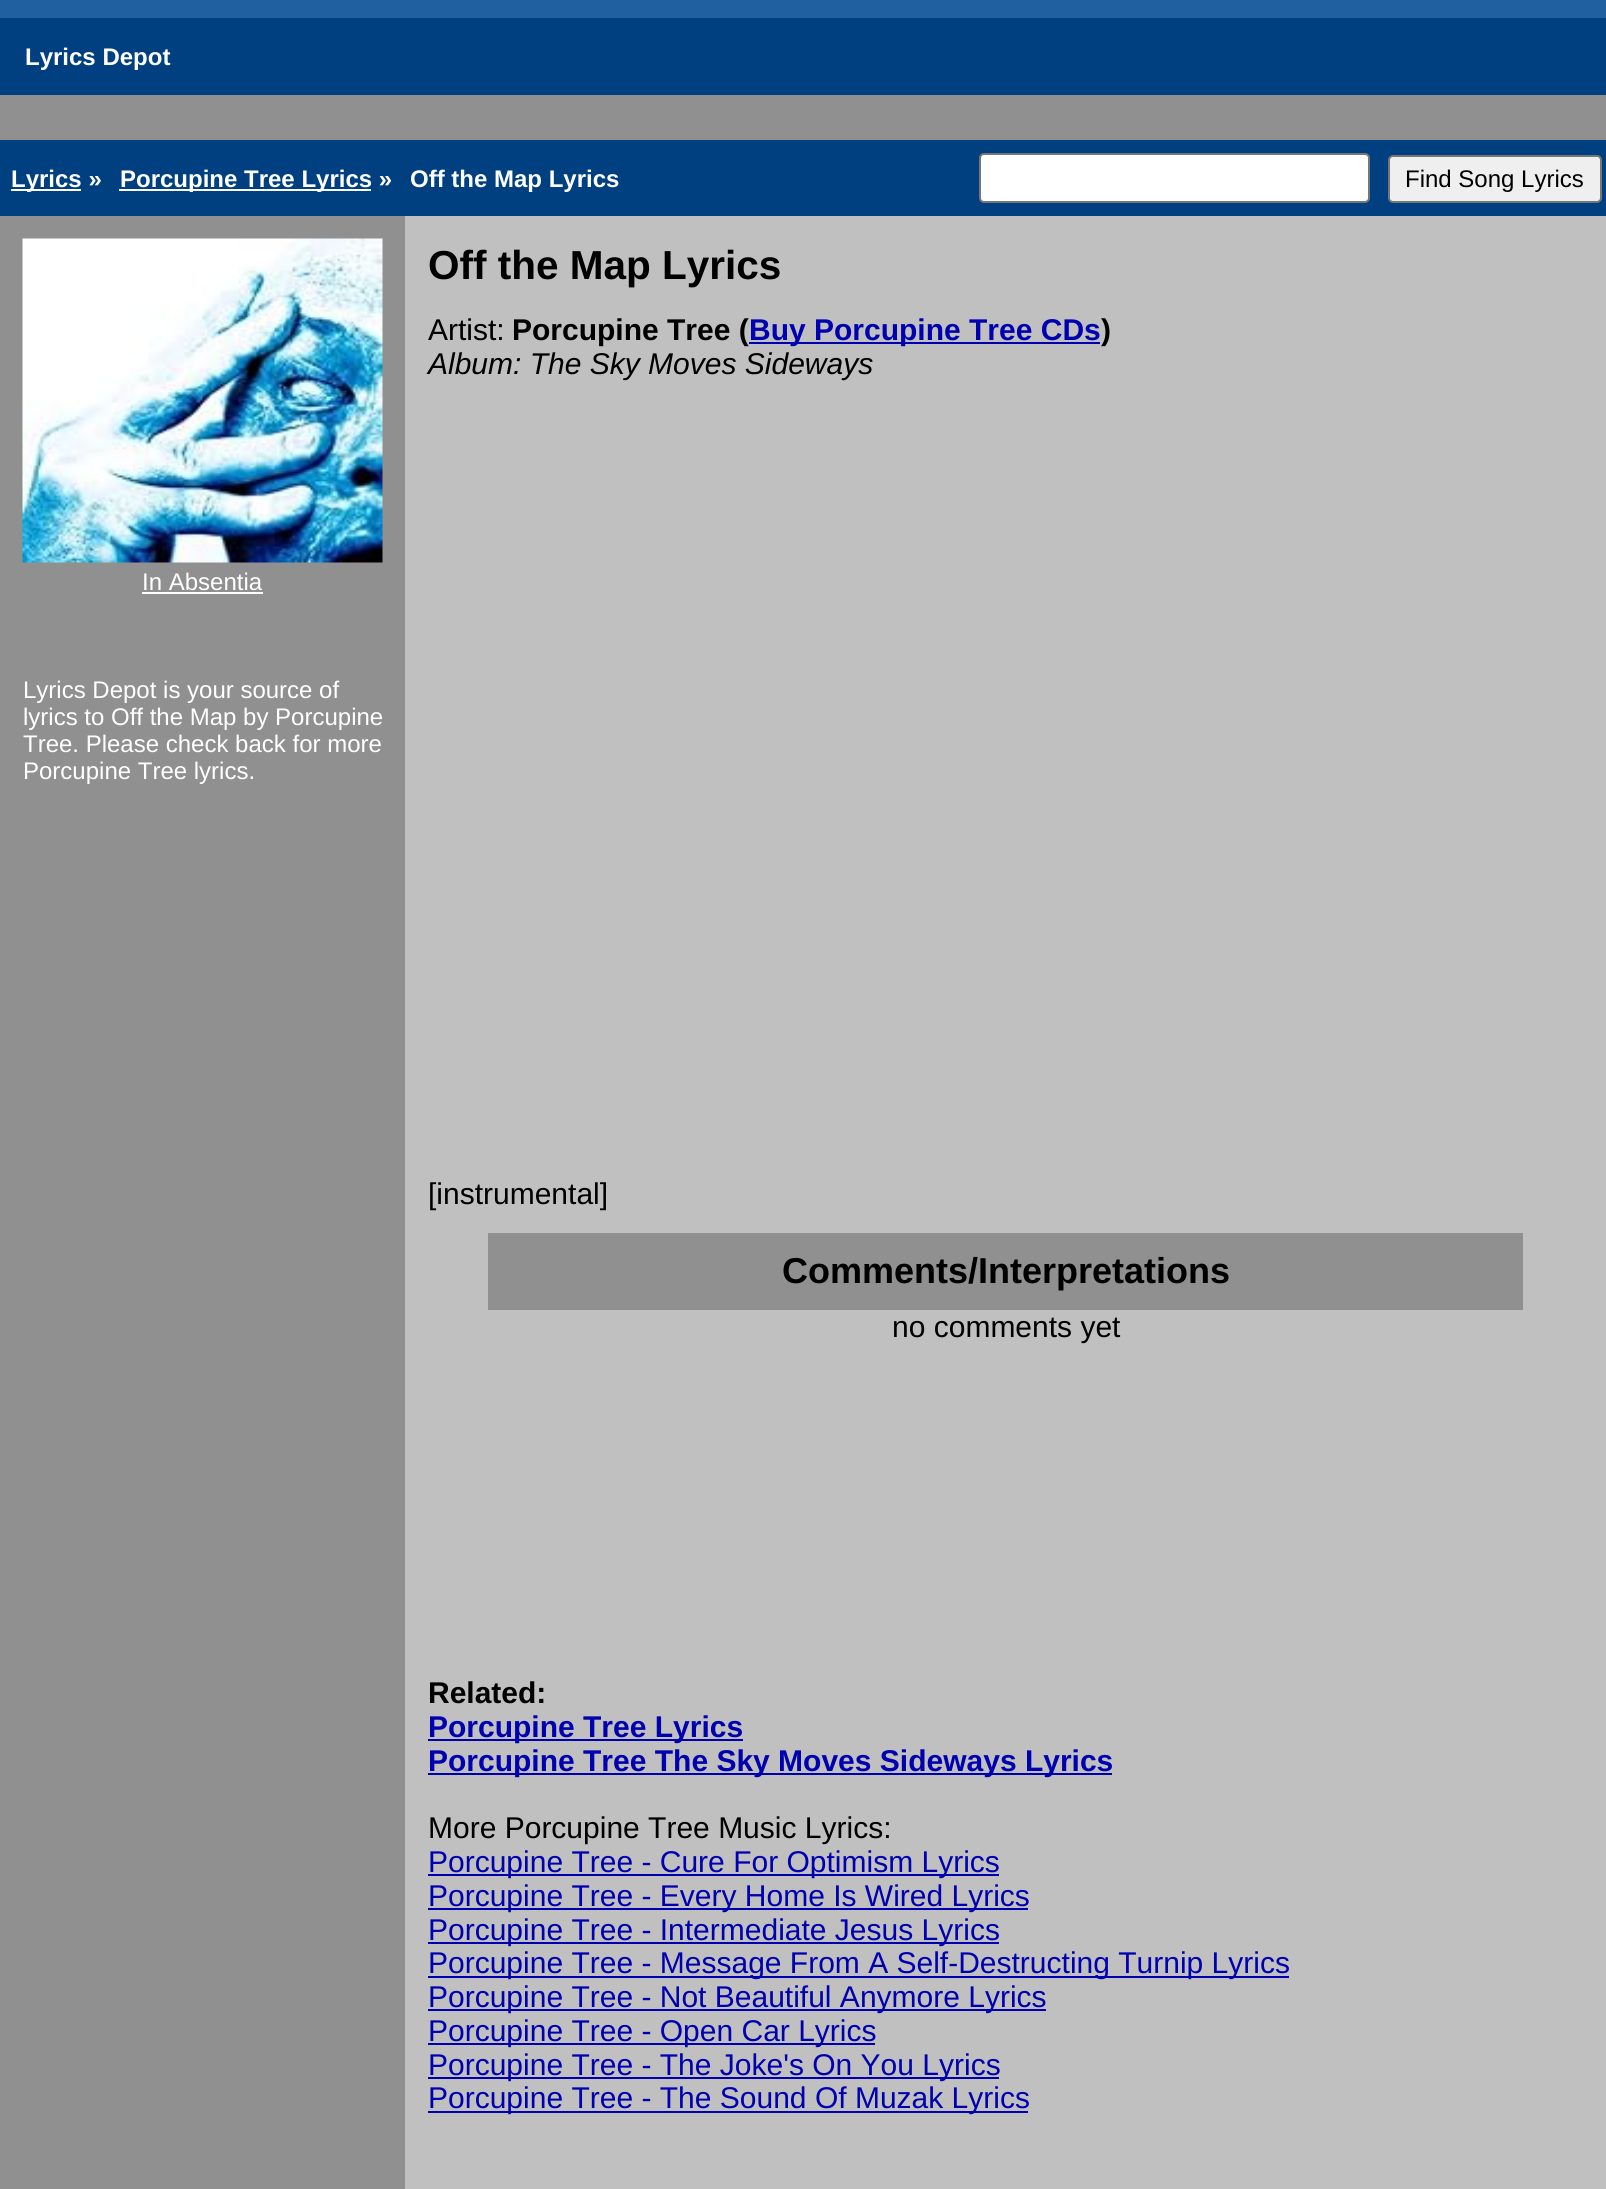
#include <cairo.h>
#include <math.h>
#include <stddef.h>

typedef struct { double x, y; const char *s; } line_t;

static void ink(cairo_t *ctx, unsigned color) {
    cairo_set_source_rgb(ctx, (color >> 16) / 255.0, (color >> 8 & 255) / 255.0, (color & 255) / 255.0);
}

static void round_path(cairo_t *ctx, double x, double y, double w, double h, double r) {
    cairo_new_sub_path(ctx);
    cairo_arc(ctx, x + w - r, y + h - r, r, 0, M_PI / 2);
    cairo_arc(ctx, x + r, y + h - r, r, M_PI / 2, M_PI);
    cairo_arc(ctx, x + r, y + r, r, M_PI, 1.5 * M_PI);
    cairo_arc(ctx, x + w - r, y + r, r, 1.5 * M_PI, 2 * M_PI);
    cairo_close_path(ctx);
}

static void paste(cairo_t *ctx, const char *path, double x, double y, double w, double h) {
    cairo_surface_t *image = cairo_image_surface_create_from_png(path);
    cairo_save(ctx);
    cairo_set_source_surface(ctx, image, x, y);
    cairo_rectangle(ctx, x, y, w, h);
    cairo_fill(ctx);
    cairo_restore(ctx);
    cairo_surface_destroy(image);
}

int main(void) {
    cairo_surface_t *surface = cairo_image_surface_create(CAIRO_FORMAT_RGB24, 1606, 2189);
    cairo_t *ctx = cairo_create(surface);
    cairo_font_options_t *options = cairo_font_options_create();
    cairo_font_options_set_hint_metrics(options, CAIRO_HINT_METRICS_OFF);
    cairo_font_options_set_hint_style(options, CAIRO_HINT_STYLE_NONE);
    cairo_set_font_options(ctx, options);
    cairo_set_miter_limit(ctx, 4);
    ink(ctx, 0x909090);
    cairo_paint(ctx);
    ink(ctx, 0x004080);
    cairo_rectangle(ctx, 0, 18, 1606, 77);
    cairo_fill(ctx);
    ink(ctx, 0x2060A0);
    cairo_rectangle(ctx, 0, 0, 1606, 18);
    cairo_fill(ctx);
    cairo_select_font_face(ctx, "Liberation Sans", CAIRO_FONT_SLANT_NORMAL, CAIRO_FONT_WEIGHT_BOLD);
    cairo_set_font_size(ctx, 24);
    ink(ctx, 0xFFFFFF);
    cairo_move_to(ctx, 25, 65);
    cairo_show_text(ctx, "Lyrics Depot");
    ink(ctx, 0x004080);
    cairo_rectangle(ctx, 0, 140, 1606, 76);
    cairo_fill(ctx);
    ink(ctx, 0xFFFFFF);
    cairo_rectangle(ctx, 11, 189, 70, 2);
    cairo_fill(ctx);
    cairo_move_to(ctx, 11, 187);
    cairo_show_text(ctx, "Lyrics »");
    cairo_rectangle(ctx, 119, 189, 252, 2);
    cairo_fill(ctx);
    cairo_move_to(ctx, 120, 187);
    cairo_show_text(ctx, "Porcupine Tree Lyrics »");
    cairo_move_to(ctx, 410, 187);
    cairo_show_text(ctx, "Off the Map Lyrics");
    round_path(ctx, 980, 154, 389, 48, 4);
    cairo_fill_preserve(ctx);
    ink(ctx, 0x767676);
    cairo_stroke(ctx);
    ink(ctx, 0xEFEFEF);
    round_path(ctx, 1389, 156, 212, 46, 4);
    cairo_fill_preserve(ctx);
    ink(ctx, 0x767676);
    cairo_stroke(ctx);
    cairo_select_font_face(ctx, "Liberation Sans", CAIRO_FONT_SLANT_NORMAL, CAIRO_FONT_WEIGHT_NORMAL);
    ink(ctx, 0x000000);
    cairo_move_to(ctx, 1405, 187);
    cairo_show_text(ctx, "Find Song Lyrics");
    ink(ctx, 0xC0C0C0);
    cairo_rectangle(ctx, 405, 216, 1201, 1973);
    cairo_fill(ctx);
    paste(ctx, "media/1.png", 22, 238, 361, 325);
    ink(ctx, 0xFFFFFF);
    cairo_move_to(ctx, 142, 590);
    cairo_show_text(ctx, "In Absentia");
    cairo_rectangle(ctx, 142, 592, 121, 2);
    cairo_fill(ctx);
    {
        static const line_t items[] = {
            {23, 698, "Lyrics Depot is your source of"},
            {23, 725, "lyrics to Off the Map by Porcupine"},
            {23, 752, "Tree. Please check back for more"},
            {23, 779, "Porcupine Tree lyrics."},
        };
        for (size_t i = 0; i < sizeof items / sizeof *items; i++) {
            cairo_move_to(ctx, items[i].x, items[i].y);
            cairo_show_text(ctx, items[i].s);
        }
    }
    cairo_select_font_face(ctx, "Liberation Sans", CAIRO_FONT_SLANT_NORMAL, CAIRO_FONT_WEIGHT_BOLD);
    cairo_set_font_size(ctx, 40.5);
    ink(ctx, 0x000000);
    cairo_move_to(ctx, 428, 279);
    cairo_show_text(ctx, "Off the Map Lyrics");
    cairo_select_font_face(ctx, "Liberation Sans", CAIRO_FONT_SLANT_NORMAL, CAIRO_FONT_WEIGHT_NORMAL);
    cairo_set_font_size(ctx, 30);
    cairo_move_to(ctx, 428, 340);
    cairo_show_text(ctx, "Artist:");
    cairo_select_font_face(ctx, "Liberation Sans", CAIRO_FONT_SLANT_NORMAL, CAIRO_FONT_WEIGHT_BOLD);
    cairo_move_to(ctx, 512, 340);
    cairo_show_text(ctx, "Porcupine Tree (");
    ink(ctx, 0x0000B0);
    cairo_rectangle(ctx, 749, 342, 351, 2);
    cairo_fill(ctx);
    cairo_move_to(ctx, 749, 340);
    cairo_show_text(ctx, "Buy Porcupine Tree CDs");
    ink(ctx, 0x000000);
    cairo_move_to(ctx, 1101, 340);
    cairo_show_text(ctx, ")");
    cairo_select_font_face(ctx, "Liberation Sans", CAIRO_FONT_SLANT_ITALIC, CAIRO_FONT_WEIGHT_NORMAL);
    cairo_move_to(ctx, 428, 374);
    cairo_show_text(ctx, "Album: The Sky Moves Sideways");
    cairo_select_font_face(ctx, "Liberation Sans", CAIRO_FONT_SLANT_NORMAL, CAIRO_FONT_WEIGHT_NORMAL);
    cairo_move_to(ctx, 428, 1204);
    cairo_show_text(ctx, "[instrumental]");
    ink(ctx, 0x909090);
    cairo_rectangle(ctx, 488, 1233, 1035, 77);
    cairo_fill(ctx);
    cairo_select_font_face(ctx, "Liberation Sans", CAIRO_FONT_SLANT_NORMAL, CAIRO_FONT_WEIGHT_BOLD);
    cairo_set_font_size(ctx, 36);
    ink(ctx, 0x000000);
    cairo_move_to(ctx, 782, 1283);
    cairo_show_text(ctx, "Comments/Interpretations");
    cairo_select_font_face(ctx, "Liberation Sans", CAIRO_FONT_SLANT_NORMAL, CAIRO_FONT_WEIGHT_NORMAL);
    cairo_set_font_size(ctx, 30);
    cairo_move_to(ctx, 892, 1337);
    cairo_show_text(ctx, "no comments yet");
    cairo_select_font_face(ctx, "Liberation Sans", CAIRO_FONT_SLANT_NORMAL, CAIRO_FONT_WEIGHT_BOLD);
    cairo_move_to(ctx, 428, 1703);
    cairo_show_text(ctx, "Related:");
    ink(ctx, 0x0000B0);
    cairo_rectangle(ctx, 428, 1739, 315, 2);
    cairo_fill(ctx);
    cairo_move_to(ctx, 428, 1737);
    cairo_show_text(ctx, "Porcupine Tree Lyrics");
    cairo_rectangle(ctx, 428, 1773, 684, 2);
    cairo_fill(ctx);
    cairo_move_to(ctx, 428, 1771);
    cairo_show_text(ctx, "Porcupine Tree The Sky Moves Sideways Lyrics");
    cairo_select_font_face(ctx, "Liberation Sans", CAIRO_FONT_SLANT_NORMAL, CAIRO_FONT_WEIGHT_NORMAL);
    ink(ctx, 0x000000);
    cairo_move_to(ctx, 428, 1838);
    cairo_show_text(ctx, "More Porcupine Tree Music Lyrics:");
    ink(ctx, 0x0000B0);
    cairo_rectangle(ctx, 428, 1874, 571, 2);
    cairo_fill(ctx);
    cairo_move_to(ctx, 428, 1872);
    cairo_show_text(ctx, "Porcupine Tree - Cure For Optimism Lyrics");
    cairo_rectangle(ctx, 428, 1908, 600, 2);
    cairo_fill(ctx);
    cairo_move_to(ctx, 428, 1906);
    cairo_show_text(ctx, "Porcupine Tree - Every Home Is Wired Lyrics");
    cairo_rectangle(ctx, 428, 1942, 571, 2);
    cairo_fill(ctx);
    cairo_move_to(ctx, 428, 1940);
    cairo_show_text(ctx, "Porcupine Tree - Intermediate Jesus Lyrics");
    cairo_rectangle(ctx, 428, 1976, 861, 2);
    cairo_fill(ctx);
    cairo_move_to(ctx, 428, 1973);
    cairo_show_text(ctx, "Porcupine Tree - Message From A Self-Destructing Turnip Lyrics");
    cairo_rectangle(ctx, 428, 2009, 618, 2);
    cairo_fill(ctx);
    cairo_move_to(ctx, 428, 2007);
    cairo_show_text(ctx, "Porcupine Tree - Not Beautiful Anymore Lyrics");
    cairo_rectangle(ctx, 428, 2043, 447, 2);
    cairo_fill(ctx);
    cairo_move_to(ctx, 428, 2041);
    cairo_show_text(ctx, "Porcupine Tree - Open Car Lyrics");
    cairo_rectangle(ctx, 428, 2077, 571, 2);
    cairo_fill(ctx);
    cairo_move_to(ctx, 428, 2075);
    cairo_show_text(ctx, "Porcupine Tree - The Joke's On You Lyrics");
    cairo_rectangle(ctx, 428, 2111, 600, 2);
    cairo_fill(ctx);
    cairo_move_to(ctx, 428, 2108);
    cairo_show_text(ctx, "Porcupine Tree - The Sound Of Muzak Lyrics");
    cairo_surface_write_to_png(surface, "image.png");
    cairo_font_options_destroy(options);
    cairo_destroy(ctx);
    cairo_surface_destroy(surface);
    return 0;
}
